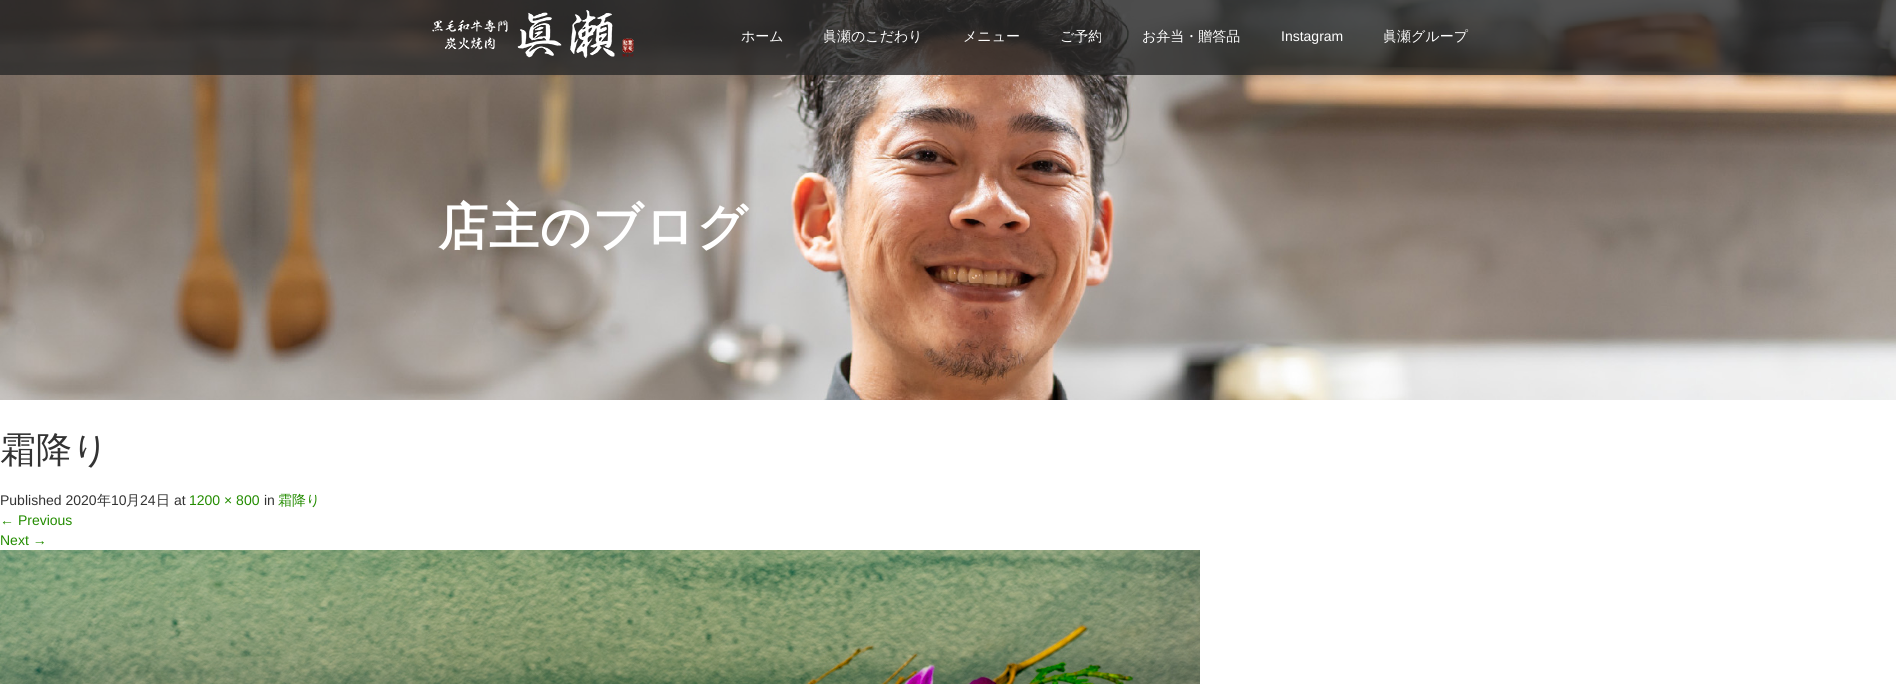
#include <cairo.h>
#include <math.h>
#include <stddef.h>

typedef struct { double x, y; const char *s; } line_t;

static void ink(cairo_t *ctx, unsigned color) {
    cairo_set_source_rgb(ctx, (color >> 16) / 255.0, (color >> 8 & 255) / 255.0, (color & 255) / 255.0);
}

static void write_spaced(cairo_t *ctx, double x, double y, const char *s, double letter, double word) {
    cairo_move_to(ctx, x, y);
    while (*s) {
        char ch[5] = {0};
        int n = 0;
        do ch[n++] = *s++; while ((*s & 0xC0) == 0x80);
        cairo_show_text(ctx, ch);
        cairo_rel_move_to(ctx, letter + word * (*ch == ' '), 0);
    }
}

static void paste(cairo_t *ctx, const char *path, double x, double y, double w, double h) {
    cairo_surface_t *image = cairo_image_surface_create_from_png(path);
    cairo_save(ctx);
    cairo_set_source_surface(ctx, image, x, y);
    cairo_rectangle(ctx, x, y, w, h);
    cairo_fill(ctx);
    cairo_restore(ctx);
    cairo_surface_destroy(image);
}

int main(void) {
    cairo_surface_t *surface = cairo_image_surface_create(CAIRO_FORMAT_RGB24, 1896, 684);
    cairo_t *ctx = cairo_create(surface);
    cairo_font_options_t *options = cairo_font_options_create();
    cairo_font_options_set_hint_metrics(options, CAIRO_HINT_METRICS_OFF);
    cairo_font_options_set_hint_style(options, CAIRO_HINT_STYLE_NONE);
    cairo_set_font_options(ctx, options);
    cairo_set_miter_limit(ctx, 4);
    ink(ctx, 0xFFFFFF);
    cairo_paint(ctx);
    paste(ctx, "media/1.png", 0, 0, 1896, 400);
    cairo_set_source_rgba(ctx, 0.157, 0.157, 0.157, 0.8);
    cairo_rectangle(ctx, 0, 0, 1896, 75);
    cairo_fill(ctx);
    paste(ctx, "media/2.png", 432, 10, 202, 48);
    cairo_select_font_face(ctx, "WenQuanYi Zen Hei Medium", CAIRO_FONT_SLANT_NORMAL, CAIRO_FONT_WEIGHT_NORMAL);
    cairo_set_font_size(ctx, 14);
    ink(ctx, 0xFFFFFF);
    {
        static const line_t items[] = {
            {741, 41, "ホーム"},
            {823, 41, "眞瀬のこだわり"},
            {963, 41, "メニュー"},
            {1060, 41, "ご予約"},
            {1142, 41, "お弁当・贈答品"},
        };
        for (size_t i = 0; i < sizeof items / sizeof *items; i++) {
            cairo_move_to(ctx, items[i].x, items[i].y);
            cairo_show_text(ctx, items[i].s);
        }
    }
    cairo_select_font_face(ctx, "Liberation Sans", CAIRO_FONT_SLANT_NORMAL, CAIRO_FONT_WEIGHT_NORMAL);
    cairo_move_to(ctx, 1281, 41);
    cairo_show_text(ctx, "Instagram");
    cairo_select_font_face(ctx, "WenQuanYi Zen Hei Medium", CAIRO_FONT_SLANT_NORMAL, CAIRO_FONT_WEIGHT_NORMAL);
    cairo_move_to(ctx, 1383, 41);
    cairo_show_text(ctx, "眞瀬グループ");
    cairo_select_font_face(ctx, "WenQuanYi Zen Hei", CAIRO_FONT_SLANT_NORMAL, CAIRO_FONT_WEIGHT_BOLD);
    cairo_set_font_size(ctx, 50);
    write_spaced(ctx, 438, 244, "店主のブログ", 1, 0);
    cairo_select_font_face(ctx, "WenQuanYi Zen Hei Medium", CAIRO_FONT_SLANT_NORMAL, CAIRO_FONT_WEIGHT_NORMAL);
    cairo_set_font_size(ctx, 36);
    ink(ctx, 0x333333);
    cairo_move_to(ctx, 0, 462);
    cairo_show_text(ctx, "霜降り");
    cairo_select_font_face(ctx, "Liberation Sans", CAIRO_FONT_SLANT_NORMAL, CAIRO_FONT_WEIGHT_NORMAL);
    cairo_set_font_size(ctx, 14);
    cairo_move_to(ctx, 0, 505);
    cairo_show_text(ctx, "Published 2020");
    cairo_select_font_face(ctx, "WenQuanYi Zen Hei Medium", CAIRO_FONT_SLANT_NORMAL, CAIRO_FONT_WEIGHT_NORMAL);
    cairo_move_to(ctx, 97, 505);
    cairo_show_text(ctx, "年");
    cairo_select_font_face(ctx, "Liberation Sans", CAIRO_FONT_SLANT_NORMAL, CAIRO_FONT_WEIGHT_NORMAL);
    cairo_move_to(ctx, 111, 505);
    cairo_show_text(ctx, "10");
    cairo_select_font_face(ctx, "WenQuanYi Zen Hei Medium", CAIRO_FONT_SLANT_NORMAL, CAIRO_FONT_WEIGHT_NORMAL);
    cairo_move_to(ctx, 126, 505);
    cairo_show_text(ctx, "月");
    cairo_select_font_face(ctx, "Liberation Sans", CAIRO_FONT_SLANT_NORMAL, CAIRO_FONT_WEIGHT_NORMAL);
    cairo_move_to(ctx, 140, 505);
    cairo_show_text(ctx, "24");
    cairo_select_font_face(ctx, "WenQuanYi Zen Hei Medium", CAIRO_FONT_SLANT_NORMAL, CAIRO_FONT_WEIGHT_NORMAL);
    cairo_move_to(ctx, 156, 505);
    cairo_show_text(ctx, "日");
    cairo_select_font_face(ctx, "Liberation Sans", CAIRO_FONT_SLANT_NORMAL, CAIRO_FONT_WEIGHT_NORMAL);
    cairo_move_to(ctx, 174, 505);
    cairo_show_text(ctx, "at");
    ink(ctx, 0x238C00);
    cairo_move_to(ctx, 189, 505);
    cairo_show_text(ctx, "1200 × 800");
    ink(ctx, 0x333333);
    cairo_move_to(ctx, 264, 505);
    cairo_show_text(ctx, "in");
    cairo_select_font_face(ctx, "WenQuanYi Zen Hei Medium", CAIRO_FONT_SLANT_NORMAL, CAIRO_FONT_WEIGHT_NORMAL);
    ink(ctx, 0x238C00);
    cairo_move_to(ctx, 278, 505);
    cairo_show_text(ctx, "霜降り");
    cairo_select_font_face(ctx, "Liberation Sans", CAIRO_FONT_SLANT_NORMAL, CAIRO_FONT_WEIGHT_NORMAL);
    cairo_move_to(ctx, 0, 525);
    cairo_show_text(ctx, "← Previous");
    cairo_move_to(ctx, 0, 545);
    cairo_show_text(ctx, "Next →");
    paste(ctx, "media/3.png", 0, 550, 1200, 134);
    cairo_surface_write_to_png(surface, "image.png");
    cairo_font_options_destroy(options);
    cairo_destroy(ctx);
    cairo_surface_destroy(surface);
    return 0;
}
